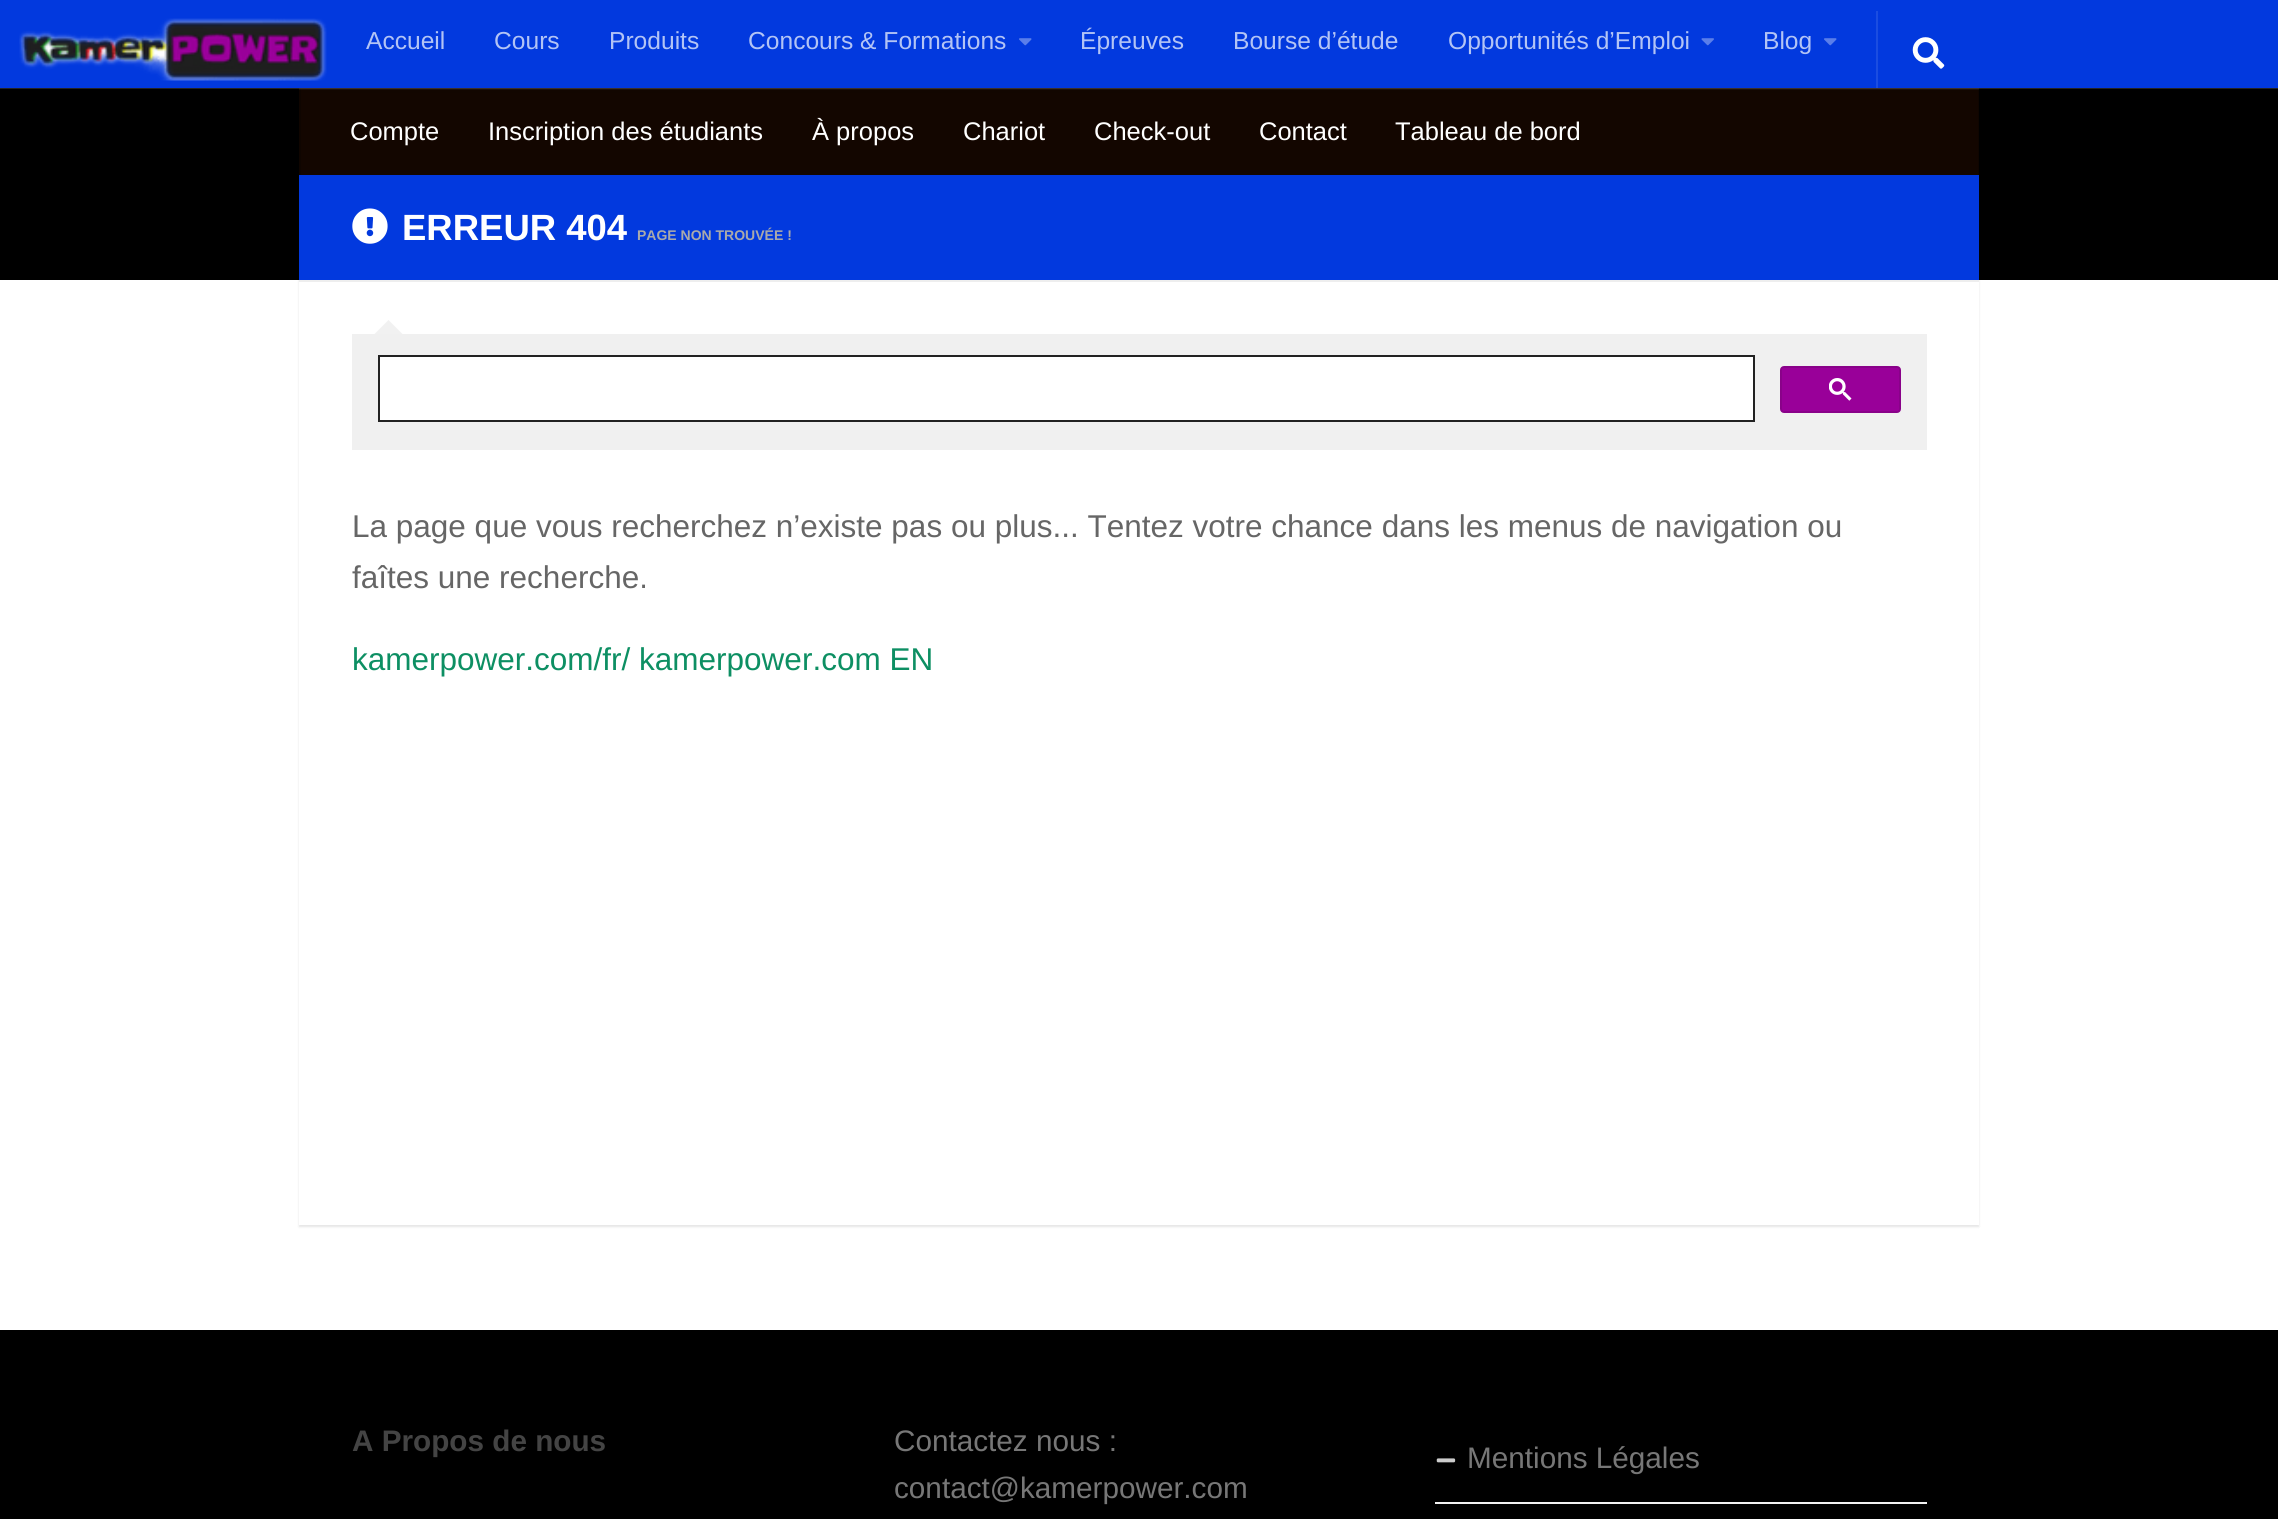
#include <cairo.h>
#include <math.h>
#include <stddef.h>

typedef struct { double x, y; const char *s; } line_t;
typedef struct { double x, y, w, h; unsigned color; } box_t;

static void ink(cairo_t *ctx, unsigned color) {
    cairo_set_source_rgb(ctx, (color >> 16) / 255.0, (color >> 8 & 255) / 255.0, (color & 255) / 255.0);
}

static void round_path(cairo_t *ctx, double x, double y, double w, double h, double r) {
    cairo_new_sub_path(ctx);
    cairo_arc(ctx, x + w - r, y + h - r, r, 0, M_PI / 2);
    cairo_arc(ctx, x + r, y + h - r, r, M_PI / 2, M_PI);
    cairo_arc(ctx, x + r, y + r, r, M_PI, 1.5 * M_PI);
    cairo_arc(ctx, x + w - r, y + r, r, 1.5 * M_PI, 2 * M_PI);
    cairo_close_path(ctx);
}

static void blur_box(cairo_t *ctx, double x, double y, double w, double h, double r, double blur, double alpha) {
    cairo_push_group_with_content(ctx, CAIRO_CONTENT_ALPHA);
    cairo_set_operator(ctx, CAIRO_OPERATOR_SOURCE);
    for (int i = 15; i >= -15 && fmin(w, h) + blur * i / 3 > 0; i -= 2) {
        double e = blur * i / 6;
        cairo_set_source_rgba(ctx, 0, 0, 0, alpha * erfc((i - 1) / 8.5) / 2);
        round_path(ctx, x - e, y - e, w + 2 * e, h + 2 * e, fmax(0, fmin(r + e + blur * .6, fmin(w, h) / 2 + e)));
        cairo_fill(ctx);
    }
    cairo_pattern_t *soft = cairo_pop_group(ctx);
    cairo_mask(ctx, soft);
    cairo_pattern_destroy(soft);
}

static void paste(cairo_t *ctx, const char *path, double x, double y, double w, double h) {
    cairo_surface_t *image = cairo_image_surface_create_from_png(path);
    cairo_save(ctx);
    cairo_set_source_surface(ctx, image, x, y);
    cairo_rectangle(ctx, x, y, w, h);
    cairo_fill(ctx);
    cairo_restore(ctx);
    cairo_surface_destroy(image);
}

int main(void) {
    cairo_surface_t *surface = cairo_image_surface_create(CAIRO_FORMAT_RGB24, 2278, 1519);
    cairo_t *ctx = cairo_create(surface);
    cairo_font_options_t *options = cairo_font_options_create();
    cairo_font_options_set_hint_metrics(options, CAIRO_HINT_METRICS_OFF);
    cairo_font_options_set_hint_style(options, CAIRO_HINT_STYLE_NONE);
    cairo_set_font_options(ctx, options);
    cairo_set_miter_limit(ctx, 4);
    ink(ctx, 0xFFFFFF);
    cairo_paint(ctx);
    ink(ctx, 0x000000);
    blur_box(ctx, 299, 177, 1680, 1050, 0, 1, 0.1);
    {
        static const box_t items[] = {
            {0, 88, 2278, 192, 0x000000},
            {299, 88, 1680, 2, 0x1F120D},
            {1978, 88, 1, 87, 0x0F0500},
            {1978, 88, 1, 2, 0x1B120D},
            {299, 88, 2, 87, 0x0F0500},
            {299, 88, 2, 2, 0x1B120D},
        };
        for (size_t i = 0; i < sizeof items / sizeof *items; i++) {
            ink(ctx, items[i].color);
            cairo_rectangle(ctx, items[i].x, items[i].y, items[i].w, items[i].h);
            cairo_fill(ctx);
        }
    }
    cairo_set_source_rgba(ctx, 1, 1, 1, 0.15);
    cairo_new_path(ctx);
    cairo_move_to(ctx, 0, 88);
    cairo_line_to(ctx, 0, 89);
    cairo_line_to(ctx, 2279, 89);
    cairo_line_to(ctx, 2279, 2);
    cairo_line_to(ctx, 2278, 2);
    cairo_line_to(ctx, 2278, 88);
    cairo_close_path(ctx);
    cairo_fill(ctx);
    ink(ctx, 0x130600);
    cairo_rectangle(ctx, 301, 90, 1677, 85);
    cairo_fill(ctx);
    ink(ctx, 0x000000);
    blur_box(ctx, 0, 0, 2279, 88, 0, 4.5, 0.2);
    ink(ctx, 0x0239DE);
    cairo_rectangle(ctx, 0, 0, 2278, 88);
    cairo_fill(ctx);
    paste(ctx, "media/1.png", 19, 18, 308, 63);
    cairo_select_font_face(ctx, "Liberation Sans", CAIRO_FONT_SLANT_NORMAL, CAIRO_FONT_WEIGHT_NORMAL);
    cairo_set_font_size(ctx, 24.6);
    ink(ctx, 0xB3C4F5);
    {
        static const line_t items[] = {
            {366, 49, "Accueil"},
            {494, 49, "Cours"},
            {609, 49, "Produits"},
            {748, 49, "Concours & Formations"},
        };
        for (size_t i = 0; i < sizeof items / sizeof *items; i++) {
            cairo_move_to(ctx, items[i].x, items[i].y);
            cairo_show_text(ctx, items[i].s);
        }
    }
    paste(ctx, "media/2.png", 1019, 38, 13, 8);
    {
        static const line_t items[] = {
            {1080, 49, "Épreuves"},
            {1233, 49, "Bourse d’étude"},
            {1448, 49, "Opportunités d’Emploi"},
        };
        for (size_t i = 0; i < sizeof items / sizeof *items; i++) {
            cairo_move_to(ctx, items[i].x, items[i].y);
            cairo_show_text(ctx, items[i].s);
        }
    }
    paste(ctx, "media/3.png", 1701, 38, 13, 8);
    cairo_move_to(ctx, 1763, 49);
    cairo_show_text(ctx, "Blog");
    paste(ctx, "media/2.png", 1824, 38, 13, 8);
    ink(ctx, 0x1B4DE1);
    cairo_rectangle(ctx, 1876, 11, 2, 77);
    cairo_fill(ctx);
    paste(ctx, "media/4.png", 1912, 37, 33, 32);
    cairo_set_font_size(ctx, 25.5);
    ink(ctx, 0xFFFFFF);
    {
        static const line_t items[] = {
            {350, 140, "Compte"},
            {488, 140, "Inscription des étudiants"},
            {812, 140, "À propos"},
            {963, 140, "Chariot"},
            {1094, 140, "Check-out"},
            {1259, 140, "Contact"},
            {1395, 140, "Tableau de bord"},
        };
        for (size_t i = 0; i < sizeof items / sizeof *items; i++) {
            cairo_move_to(ctx, items[i].x, items[i].y);
            cairo_show_text(ctx, items[i].s);
        }
    }
    {
        static const box_t items[] = {
            {299, 282, 1680, 943, 0xFFFFFF},
            {299, 175, 1680, 105, 0x0239DE},
            {299, 280, 1680, 2, 0xEEEEEE},
        };
        for (size_t i = 0; i < sizeof items / sizeof *items; i++) {
            ink(ctx, items[i].color);
            cairo_rectangle(ctx, items[i].x, items[i].y, items[i].w, items[i].h);
            cairo_fill(ctx);
        }
    }
    paste(ctx, "media/5.png", 352, 208, 36, 36);
    cairo_select_font_face(ctx, "Liberation Sans", CAIRO_FONT_SLANT_NORMAL, CAIRO_FONT_WEIGHT_BOLD);
    cairo_set_font_size(ctx, 36.5);
    ink(ctx, 0xFFFFFF);
    cairo_move_to(ctx, 402, 240);
    cairo_show_text(ctx, "ERREUR 404");
    cairo_set_font_size(ctx, 14);
    ink(ctx, 0xAAAAAA);
    cairo_move_to(ctx, 637, 240);
    cairo_show_text(ctx, "PAGE NON TROUVÉE !");
    ink(ctx, 0xF0F0F0);
    cairo_rectangle(ctx, 352, 334, 1575, 116);
    cairo_fill(ctx);
    ink(ctx, 0xF1F1F1);
    cairo_new_path(ctx);
    cairo_move_to(ctx, 402.5, 334);
    cairo_line_to(ctx, 374.5, 334);
    cairo_line_to(ctx, 388.5, 320);
    cairo_close_path(ctx);
    cairo_fill(ctx);
    ink(ctx, 0xFFFFFF);
    cairo_rectangle(ctx, 379, 356, 1375, 65);
    cairo_fill_preserve(ctx);
    ink(ctx, 0x222222);
    cairo_stroke(ctx);
    ink(ctx, 0x990099);
    round_path(ctx, 1781, 367, 119, 45, 3);
    cairo_fill_preserve(ctx);
    ink(ctx, 0x890289);
    cairo_stroke(ctx);
    paste(ctx, "media/6.png", 1829, 378, 23, 23);
    cairo_select_font_face(ctx, "Liberation Sans", CAIRO_FONT_SLANT_NORMAL, CAIRO_FONT_WEIGHT_NORMAL);
    cairo_set_font_size(ctx, 31.5);
    ink(ctx, 0x666666);
    cairo_move_to(ctx, 352, 537);
    cairo_show_text(ctx, "La page que vous recherchez n’existe pas ou plus... Tentez votre chance dans les menus de navigation ou");
    cairo_move_to(ctx, 352, 588);
    cairo_show_text(ctx, "faîtes une recherche.");
    ink(ctx, 0x0D8F63);
    cairo_move_to(ctx, 352, 670);
    cairo_show_text(ctx, "kamerpower.com/fr/ kamerpower.com EN");
    ink(ctx, 0x000000);
    cairo_rectangle(ctx, 0, 1330, 2278, 189);
    cairo_fill(ctx);
    cairo_select_font_face(ctx, "Liberation Sans", CAIRO_FONT_SLANT_NORMAL, CAIRO_FONT_WEIGHT_BOLD);
    cairo_set_font_size(ctx, 29.7);
    ink(ctx, 0x444444);
    cairo_move_to(ctx, 352, 1451);
    cairo_show_text(ctx, "A Propos de nous");
    cairo_select_font_face(ctx, "Liberation Sans", CAIRO_FONT_SLANT_NORMAL, CAIRO_FONT_WEIGHT_NORMAL);
    ink(ctx, 0x777777);
    cairo_move_to(ctx, 894, 1451);
    cairo_show_text(ctx, "Contactez nous :");
    cairo_move_to(ctx, 894, 1498);
    cairo_show_text(ctx, "contact@kamerpower.com");
    ink(ctx, 0xF2F2F2);
    cairo_rectangle(ctx, 1435, 1502, 492, 2);
    cairo_fill(ctx);
    paste(ctx, "media/7.png", 1436, 1458, 20, 5);
    ink(ctx, 0x777777);
    cairo_move_to(ctx, 1467, 1468);
    cairo_show_text(ctx, "Mentions Légales");
    cairo_surface_write_to_png(surface, "image.png");
    cairo_font_options_destroy(options);
    cairo_destroy(ctx);
    cairo_surface_destroy(surface);
    return 0;
}
